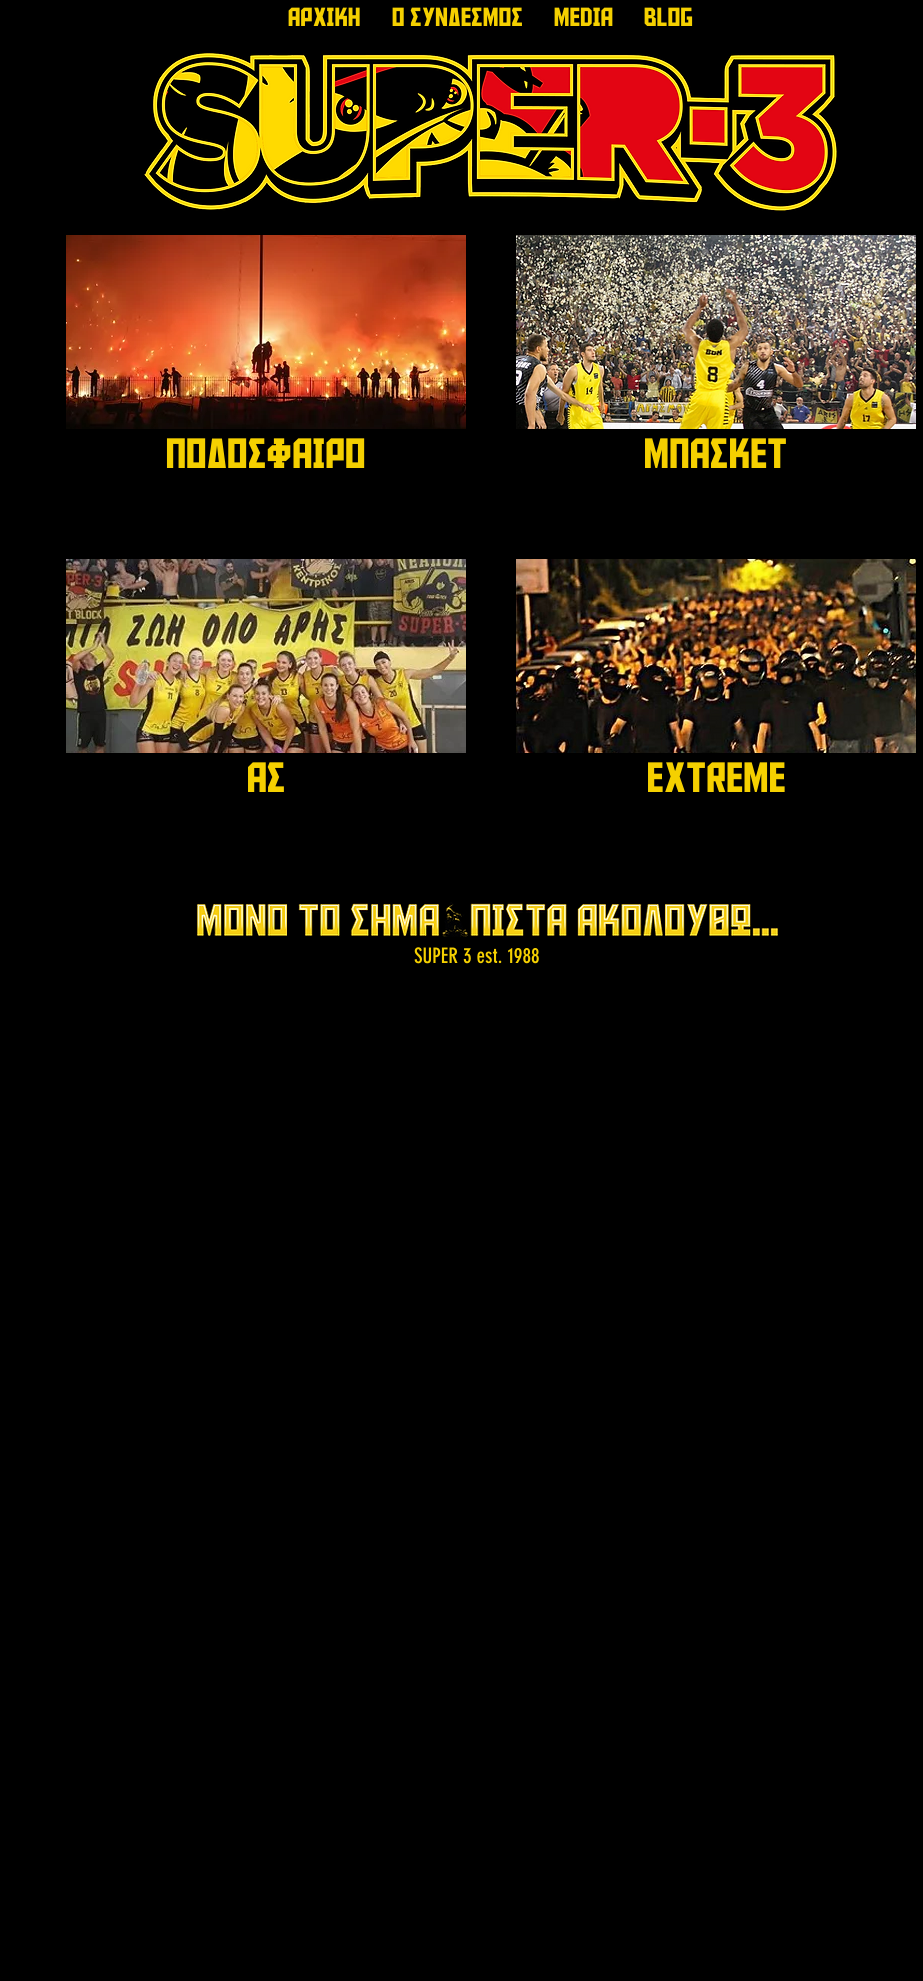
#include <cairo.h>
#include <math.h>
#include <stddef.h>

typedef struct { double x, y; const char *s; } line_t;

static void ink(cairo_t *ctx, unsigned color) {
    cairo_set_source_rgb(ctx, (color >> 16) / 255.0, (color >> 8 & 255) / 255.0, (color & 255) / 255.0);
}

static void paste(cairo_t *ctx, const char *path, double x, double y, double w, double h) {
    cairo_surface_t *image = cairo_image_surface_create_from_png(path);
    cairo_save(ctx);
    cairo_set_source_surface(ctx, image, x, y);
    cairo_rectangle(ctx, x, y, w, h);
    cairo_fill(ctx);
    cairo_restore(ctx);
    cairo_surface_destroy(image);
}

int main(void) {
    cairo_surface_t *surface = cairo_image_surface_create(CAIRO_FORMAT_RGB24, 923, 1981);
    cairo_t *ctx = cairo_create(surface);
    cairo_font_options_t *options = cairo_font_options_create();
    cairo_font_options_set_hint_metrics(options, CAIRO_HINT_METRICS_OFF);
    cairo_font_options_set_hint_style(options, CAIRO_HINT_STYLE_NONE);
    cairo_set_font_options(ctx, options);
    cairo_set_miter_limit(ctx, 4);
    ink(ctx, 0x000000);
    cairo_paint(ctx);
    cairo_select_font_face(ctx, "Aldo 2", CAIRO_FONT_SLANT_NORMAL, CAIRO_FONT_WEIGHT_NORMAL);
    cairo_set_font_size(ctx, 26);
    ink(ctx, 0xF5D000);
    {
        static const line_t items[] = {
            {288, 26, "ΑΡΧΙΚΗ"},
            {392, 26, "Ο ΣΥΝΔΕΣΜΟΣ"},
            {554, 26, "MEDIA"},
            {644, 26, "Blog"},
        };
        for (size_t i = 0; i < sizeof items / sizeof *items; i++) {
            cairo_move_to(ctx, items[i].x, items[i].y);
            cairo_show_text(ctx, items[i].s);
        }
    }
    paste(ctx, "media/1.png", 144, 53, 693, 158);
    paste(ctx, "media/2.png", 66, 235, 400, 194);
    cairo_select_font_face(ctx, "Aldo", CAIRO_FONT_SLANT_NORMAL, CAIRO_FONT_WEIGHT_NORMAL);
    cairo_set_font_size(ctx, 42);
    cairo_move_to(ctx, 166, 468);
    cairo_show_text(ctx, "ΠΟΔΟΣΦΑΙΡΟ");
    paste(ctx, "media/3.png", 516, 235, 400, 194);
    cairo_move_to(ctx, 644, 468);
    cairo_show_text(ctx, "ΜΠΑΣΚΕΤ");
    paste(ctx, "media/4.png", 66, 559, 400, 194);
    cairo_move_to(ctx, 247, 792);
    cairo_show_text(ctx, "ΑΣ");
    paste(ctx, "media/5.png", 516, 559, 400, 194);
    cairo_move_to(ctx, 647, 792);
    cairo_show_text(ctx, "EXTREME");
    paste(ctx, "media/6.png", 196, 902, 583, 35);
    cairo_select_font_face(ctx, "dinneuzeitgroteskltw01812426", CAIRO_FONT_SLANT_NORMAL, CAIRO_FONT_WEIGHT_NORMAL);
    cairo_set_font_size(ctx, 21);
    cairo_move_to(ctx, 414, 963);
    cairo_show_text(ctx, "SUPER 3 est. 1988");
    cairo_surface_write_to_png(surface, "image.png");
    cairo_font_options_destroy(options);
    cairo_destroy(ctx);
    cairo_surface_destroy(surface);
    return 0;
}
